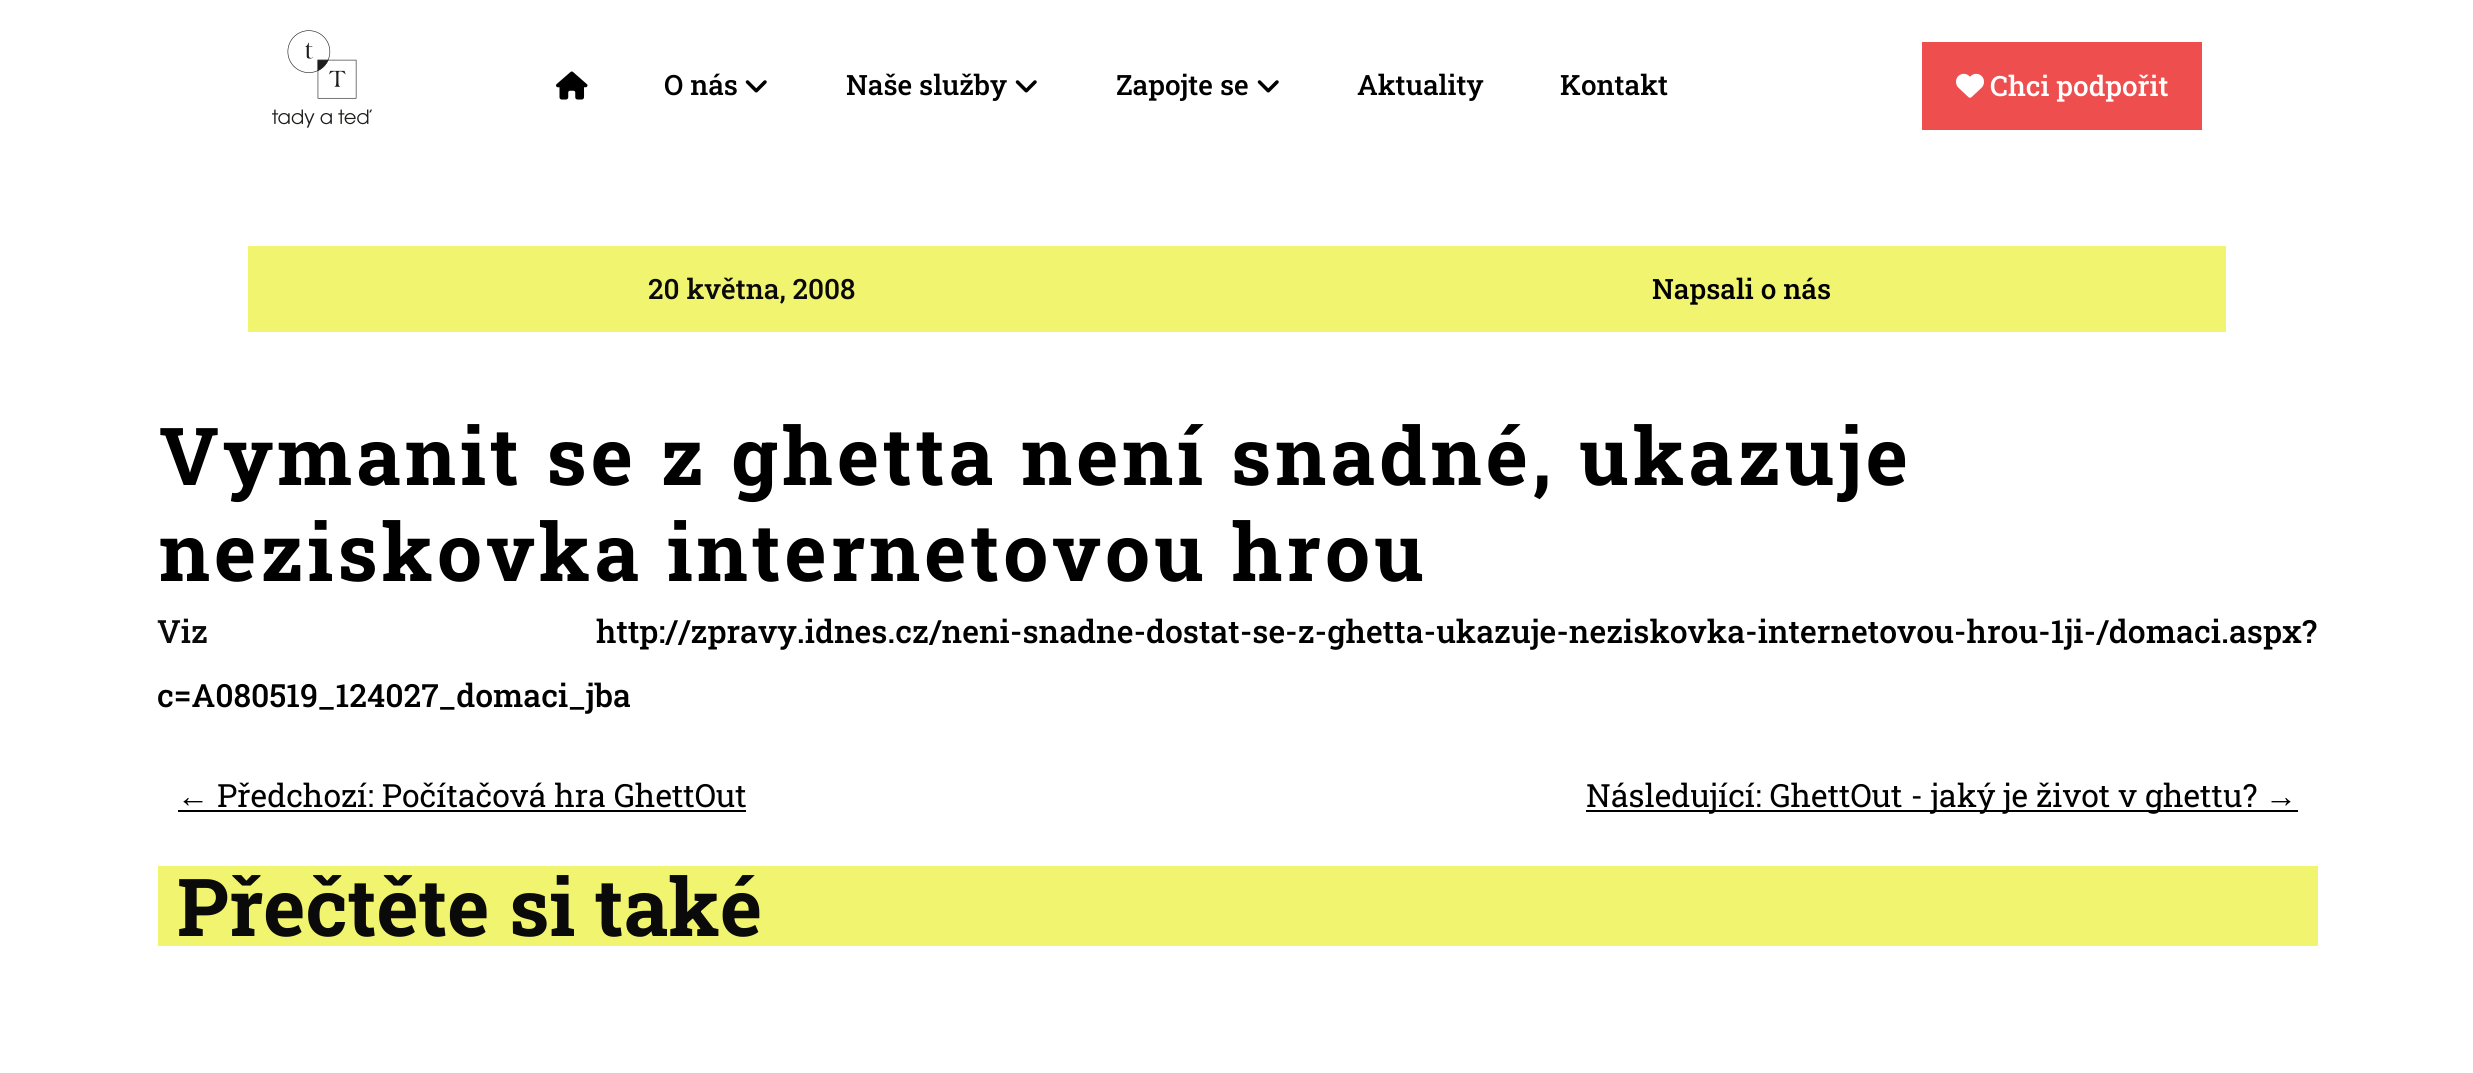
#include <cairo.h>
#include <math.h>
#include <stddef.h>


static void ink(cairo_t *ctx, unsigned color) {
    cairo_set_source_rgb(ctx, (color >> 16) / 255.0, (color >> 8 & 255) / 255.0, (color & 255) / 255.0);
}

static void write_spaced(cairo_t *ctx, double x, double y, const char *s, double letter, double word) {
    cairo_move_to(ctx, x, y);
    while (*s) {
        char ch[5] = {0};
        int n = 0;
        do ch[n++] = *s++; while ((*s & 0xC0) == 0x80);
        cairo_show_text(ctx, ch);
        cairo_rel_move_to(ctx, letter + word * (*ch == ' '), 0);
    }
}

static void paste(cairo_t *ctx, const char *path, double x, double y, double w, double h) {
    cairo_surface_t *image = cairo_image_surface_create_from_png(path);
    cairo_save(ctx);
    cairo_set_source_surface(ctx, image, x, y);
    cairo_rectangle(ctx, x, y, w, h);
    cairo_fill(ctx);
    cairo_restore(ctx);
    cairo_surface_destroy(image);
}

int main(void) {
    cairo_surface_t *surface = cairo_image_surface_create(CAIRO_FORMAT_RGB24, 2473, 1073);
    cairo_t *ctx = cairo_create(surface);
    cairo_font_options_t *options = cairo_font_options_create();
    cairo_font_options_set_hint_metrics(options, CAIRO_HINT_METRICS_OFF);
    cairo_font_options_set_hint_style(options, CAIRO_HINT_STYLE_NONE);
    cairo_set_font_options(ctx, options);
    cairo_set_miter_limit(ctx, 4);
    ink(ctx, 0xFFFFFF);
    cairo_paint(ctx);
    paste(ctx, "media/1.png", 272, 30, 100, 98);
    paste(ctx, "media/2.png", 556, 71, 32, 29);
    cairo_select_font_face(ctx, "Roboto Slab Medium", CAIRO_FONT_SLANT_NORMAL, CAIRO_FONT_WEIGHT_NORMAL);
    cairo_set_font_size(ctx, 28);
    ink(ctx, 0x000000);
    cairo_move_to(ctx, 664, 95);
    cairo_show_text(ctx, "O nás");
    paste(ctx, "media/3.png", 745, 80, 22, 13);
    cairo_move_to(ctx, 846, 95);
    cairo_show_text(ctx, "Naše služby");
    paste(ctx, "media/3.png", 1015, 80, 22, 13);
    cairo_move_to(ctx, 1116, 95);
    cairo_show_text(ctx, "Zapojte se");
    paste(ctx, "media/3.png", 1257, 80, 22, 13);
    cairo_move_to(ctx, 1357, 95);
    cairo_show_text(ctx, "Aktuality");
    cairo_move_to(ctx, 1560, 95);
    cairo_show_text(ctx, "Kontakt");
    ink(ctx, 0xEE4E4E);
    cairo_rectangle(ctx, 1922, 42, 280, 88);
    cairo_fill(ctx);
    paste(ctx, "media/4.png", 1956, 73, 28, 25);
    ink(ctx, 0xFFFFFF);
    cairo_move_to(ctx, 1990, 96);
    cairo_show_text(ctx, "Chci podpořit");
    ink(ctx, 0xF1F46E);
    cairo_rectangle(ctx, 248, 246, 1978, 86);
    cairo_fill(ctx);
    ink(ctx, 0x0A0A0A);
    cairo_move_to(ctx, 648, 299);
    cairo_show_text(ctx, "20 května, 2008");
    ink(ctx, 0x000000);
    cairo_move_to(ctx, 1652, 299);
    cairo_show_text(ctx, "Napsali o nás");
    cairo_select_font_face(ctx, "Roboto Slab", CAIRO_FONT_SLANT_NORMAL, CAIRO_FONT_WEIGHT_BOLD);
    cairo_set_font_size(ctx, 80);
    write_spaced(ctx, 159, 485, "Vymanit se z ghetta není snadné, ukazuje", 4, 0);
    write_spaced(ctx, 159, 581, "neziskovka internetovou hrou", 4, 0);
    cairo_select_font_face(ctx, "Roboto Slab Medium", CAIRO_FONT_SLANT_NORMAL, CAIRO_FONT_WEIGHT_NORMAL);
    cairo_set_font_size(ctx, 32);
    ink(ctx, 0x0A0A0A);
    cairo_move_to(ctx, 157, 643);
    cairo_show_text(ctx, "Viz");
    ink(ctx, 0x000000);
    cairo_move_to(ctx, 596, 643);
    cairo_show_text(ctx, "http://zpravy.idnes.cz/neni-snadne-dostat-se-z-ghetta-ukazuje-neziskovka-internetovou-hrou-1ji-/domaci.aspx?");
    cairo_move_to(ctx, 157, 707);
    cairo_show_text(ctx, "c=A080519_124027_domaci_jba");
    cairo_select_font_face(ctx, "Liberation Serif", CAIRO_FONT_SLANT_NORMAL, CAIRO_FONT_WEIGHT_NORMAL);
    cairo_move_to(ctx, 177, 807);
    cairo_show_text(ctx, "←");
    cairo_rectangle(ctx, 178, 810, 568, 2);
    cairo_fill(ctx);
    cairo_select_font_face(ctx, "Roboto Slab", CAIRO_FONT_SLANT_NORMAL, CAIRO_FONT_WEIGHT_NORMAL);
    cairo_move_to(ctx, 217, 807);
    cairo_show_text(ctx, "Předchozí: Počítačová hra GhettOut");
    cairo_rectangle(ctx, 1586, 810, 712, 2);
    cairo_fill(ctx);
    cairo_move_to(ctx, 1586, 807);
    cairo_show_text(ctx, "Následující: GhettOut - jaký je život v ghettu?");
    cairo_select_font_face(ctx, "Liberation Serif", CAIRO_FONT_SLANT_NORMAL, CAIRO_FONT_WEIGHT_NORMAL);
    cairo_move_to(ctx, 2265, 807);
    cairo_show_text(ctx, "→");
    ink(ctx, 0xF1F46E);
    cairo_rectangle(ctx, 158, 866, 2160, 80);
    cairo_fill(ctx);
    cairo_select_font_face(ctx, "Roboto Slab", CAIRO_FONT_SLANT_NORMAL, CAIRO_FONT_WEIGHT_BOLD);
    cairo_set_font_size(ctx, 80);
    ink(ctx, 0x0A0A0A);
    cairo_move_to(ctx, 177, 936);
    cairo_show_text(ctx, "Přečtěte si také");
    cairo_surface_write_to_png(surface, "image.png");
    cairo_font_options_destroy(options);
    cairo_destroy(ctx);
    cairo_surface_destroy(surface);
    return 0;
}
